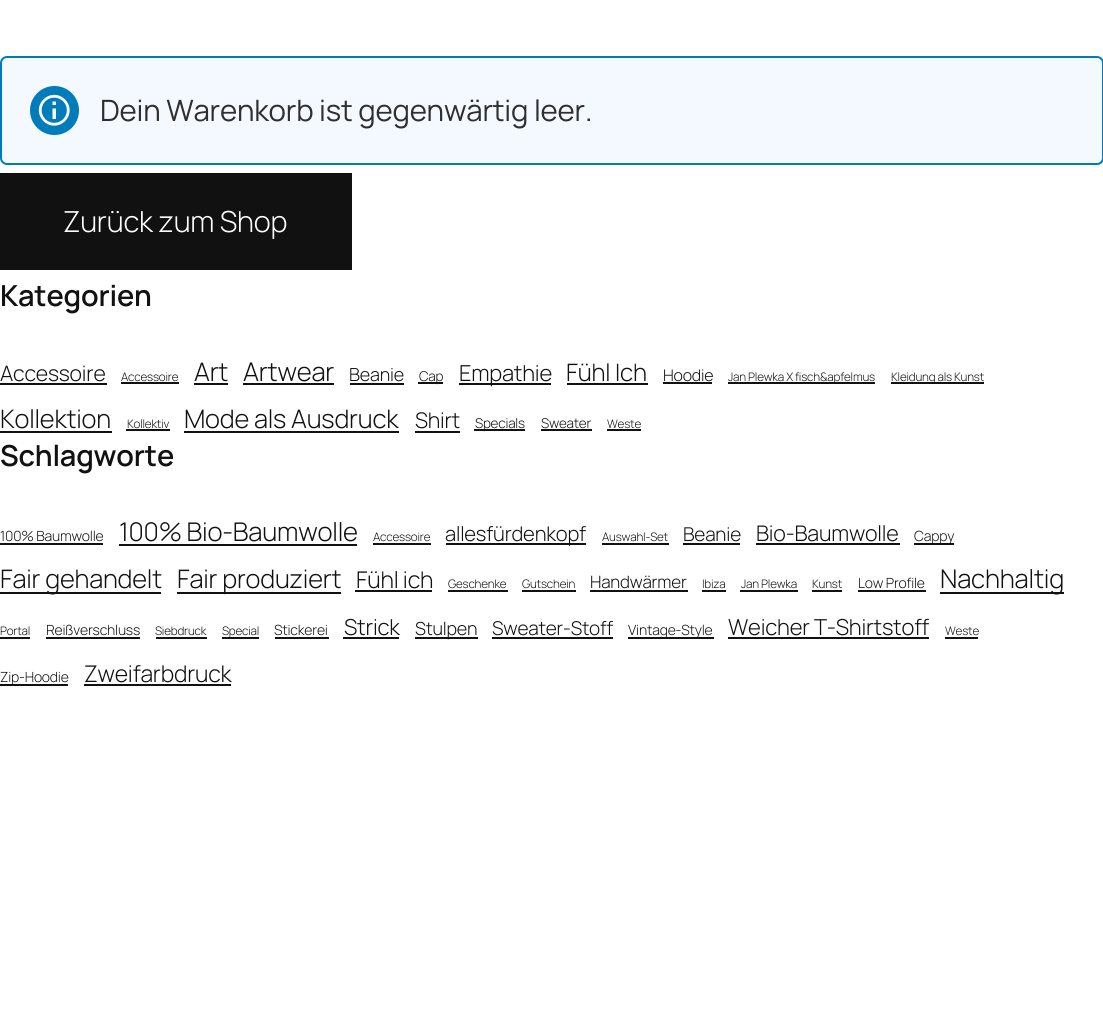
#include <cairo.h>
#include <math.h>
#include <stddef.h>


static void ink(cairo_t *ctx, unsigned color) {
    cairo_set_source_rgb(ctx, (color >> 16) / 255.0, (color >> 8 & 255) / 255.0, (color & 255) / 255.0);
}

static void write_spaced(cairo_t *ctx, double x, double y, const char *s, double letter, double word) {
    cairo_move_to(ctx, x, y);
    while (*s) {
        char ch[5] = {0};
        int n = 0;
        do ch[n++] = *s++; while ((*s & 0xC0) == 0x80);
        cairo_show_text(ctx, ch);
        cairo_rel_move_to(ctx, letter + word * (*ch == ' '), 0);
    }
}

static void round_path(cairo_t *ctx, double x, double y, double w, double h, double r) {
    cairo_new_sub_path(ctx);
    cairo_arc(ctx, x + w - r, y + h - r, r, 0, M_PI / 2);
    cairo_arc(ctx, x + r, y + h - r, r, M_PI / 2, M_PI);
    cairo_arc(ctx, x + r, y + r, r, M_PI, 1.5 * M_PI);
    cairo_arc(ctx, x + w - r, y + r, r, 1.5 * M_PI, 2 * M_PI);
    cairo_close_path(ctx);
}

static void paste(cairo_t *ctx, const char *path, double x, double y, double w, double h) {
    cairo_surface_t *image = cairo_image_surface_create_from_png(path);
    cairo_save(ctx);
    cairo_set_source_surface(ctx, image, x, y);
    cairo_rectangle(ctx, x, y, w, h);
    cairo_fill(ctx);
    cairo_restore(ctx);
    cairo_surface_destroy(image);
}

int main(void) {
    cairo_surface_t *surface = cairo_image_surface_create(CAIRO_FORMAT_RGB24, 1103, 1032);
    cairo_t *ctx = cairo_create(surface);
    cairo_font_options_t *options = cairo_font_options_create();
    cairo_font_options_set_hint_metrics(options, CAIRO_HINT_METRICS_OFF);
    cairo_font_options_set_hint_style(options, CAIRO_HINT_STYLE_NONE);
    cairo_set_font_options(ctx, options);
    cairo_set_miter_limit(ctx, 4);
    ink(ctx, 0xFFFFFF);
    cairo_paint(ctx);
    ink(ctx, 0xF4F8FF);
    round_path(ctx, 1, 57, 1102, 107, 6);
    cairo_fill_preserve(ctx);
    ink(ctx, 0x007CBA);
    cairo_stroke(ctx);
    cairo_arc(ctx, 54.5, 110.5, 24.5, 0, 2 * M_PI);
    cairo_fill(ctx);
    paste(ctx, "media/1.png", 38, 94, 32, 32);
    cairo_select_font_face(ctx, "Manrope", CAIRO_FONT_SLANT_NORMAL, CAIRO_FONT_WEIGHT_NORMAL);
    cairo_set_font_size(ctx, 29.4);
    ink(ctx, 0x2F2F2F);
    write_spaced(ctx, 100, 121, "Dein Warenkorb ist gegenwärtig leer.", -0.2, 0);
    ink(ctx, 0x111111);
    cairo_rectangle(ctx, 0, 173, 352, 97);
    cairo_fill(ctx);
    cairo_select_font_face(ctx, "Manrope Light", CAIRO_FONT_SLANT_NORMAL, CAIRO_FONT_WEIGHT_NORMAL);
    cairo_set_font_size(ctx, 29);
    ink(ctx, 0xFFFFFF);
    write_spaced(ctx, 63, 232, "Zurück zum Shop", -0.2, 0);
    cairo_select_font_face(ctx, "Manrope SemiBold", CAIRO_FONT_SLANT_NORMAL, CAIRO_FONT_WEIGHT_NORMAL);
    ink(ctx, 0x111111);
    write_spaced(ctx, 0, 306, "Kategorien", -0.2, 0);
    cairo_select_font_face(ctx, "Manrope Light", CAIRO_FONT_SLANT_NORMAL, CAIRO_FONT_WEIGHT_NORMAL);
    cairo_set_font_size(ctx, 21.25);
    write_spaced(ctx, 0, 381, "Accessoire", -0.2, 0);
    cairo_rectangle(ctx, 0, 383, 107, 2);
    cairo_fill(ctx);
    cairo_set_font_size(ctx, 11.7);
    write_spaced(ctx, 121, 381, "Accessoire", -0.2, 0);
    cairo_rectangle(ctx, 121, 382, 58, 2);
    cairo_fill(ctx);
    cairo_set_font_size(ctx, 25.5);
    write_spaced(ctx, 194, 381, "Art", -0.2, 0);
    cairo_rectangle(ctx, 194, 383, 34, 2);
    cairo_fill(ctx);
    cairo_set_font_size(ctx, 25.75);
    write_spaced(ctx, 243, 381, "Artwear", -0.2, 0);
    cairo_rectangle(ctx, 243, 383, 91, 2);
    cairo_fill(ctx);
    cairo_set_font_size(ctx, 18);
    write_spaced(ctx, 349, 381, "Beanie", -0.2, 0);
    cairo_rectangle(ctx, 350, 383, 54, 2);
    cairo_fill(ctx);
    cairo_rectangle(ctx, 418, 382, 25, 2);
    cairo_fill(ctx);
    cairo_set_font_size(ctx, 13.5);
    write_spaced(ctx, 419, 381, "Cap", -0.2, 0);
    cairo_rectangle(ctx, 459, 383, 92, 2);
    cairo_fill(ctx);
    cairo_set_font_size(ctx, 22);
    write_spaced(ctx, 459, 381, "Empathie", -0.2, 0);
    cairo_set_font_size(ctx, 24);
    write_spaced(ctx, 566, 381, "Fühl Ich", -0.2, 0);
    cairo_rectangle(ctx, 567, 383, 81, 2);
    cairo_fill(ctx);
    cairo_set_font_size(ctx, 16);
    write_spaced(ctx, 663, 381, "Hoodie", -0.2, 0);
    cairo_rectangle(ctx, 663, 382, 49, 2);
    cairo_fill(ctx);
    cairo_rectangle(ctx, 728, 382, 147, 2);
    cairo_fill(ctx);
    cairo_set_font_size(ctx, 11.7);
    write_spaced(ctx, 728, 381, "Jan Plewka X fisch&apfelmus", -0.2, 0);
    cairo_rectangle(ctx, 891, 382, 93, 2);
    cairo_fill(ctx);
    write_spaced(ctx, 891, 381, "Kleidung als Kunst", -0.2, 0);
    cairo_set_font_size(ctx, 25.5);
    write_spaced(ctx, 0, 428, "Kollektion", -0.2, 0);
    cairo_rectangle(ctx, 0, 431, 112, 2);
    cairo_fill(ctx);
    cairo_set_font_size(ctx, 11.7);
    write_spaced(ctx, 127, 428, "Kollektiv", -0.2, 0);
    cairo_rectangle(ctx, 126, 429, 44, 2);
    cairo_fill(ctx);
    cairo_set_font_size(ctx, 25.5);
    write_spaced(ctx, 184, 428, "Mode als Ausdruck", -0.2, 0);
    cairo_rectangle(ctx, 184, 431, 215, 2);
    cairo_fill(ctx);
    cairo_set_font_size(ctx, 21.5);
    write_spaced(ctx, 415, 428, "Shirt", -0.2, 0);
    cairo_rectangle(ctx, 415, 431, 45, 2);
    cairo_fill(ctx);
    cairo_rectangle(ctx, 474, 429, 51, 2);
    cairo_fill(ctx);
    cairo_set_font_size(ctx, 13.5);
    write_spaced(ctx, 475, 428, "Specials", -0.2, 0);
    write_spaced(ctx, 541, 428, "Sweater", -0.2, 0);
    cairo_rectangle(ctx, 541, 429, 51, 2);
    cairo_fill(ctx);
    cairo_set_font_size(ctx, 11.7);
    write_spaced(ctx, 607, 428, "Weste", -0.2, 0);
    cairo_rectangle(ctx, 607, 429, 34, 2);
    cairo_fill(ctx);
    cairo_select_font_face(ctx, "Manrope SemiBold", CAIRO_FONT_SLANT_NORMAL, CAIRO_FONT_WEIGHT_NORMAL);
    cairo_set_font_size(ctx, 29);
    write_spaced(ctx, 0, 466, "Schlagworte", -0.2, 0);
    cairo_select_font_face(ctx, "Manrope Light", CAIRO_FONT_SLANT_NORMAL, CAIRO_FONT_WEIGHT_NORMAL);
    cairo_set_font_size(ctx, 14);
    write_spaced(ctx, 0, 541, "100% Baumwolle", -0.2, 0);
    cairo_rectangle(ctx, 0, 543, 103, 2);
    cairo_fill(ctx);
    cairo_set_font_size(ctx, 25.75);
    write_spaced(ctx, 119, 541, "100% Bio-Baumwolle", -0.2, 0);
    cairo_rectangle(ctx, 119, 544, 238, 2);
    cairo_fill(ctx);
    cairo_set_font_size(ctx, 11.7);
    write_spaced(ctx, 373, 541, "Accessoire", -0.2, 0);
    cairo_rectangle(ctx, 373, 543, 58, 2);
    cairo_fill(ctx);
    cairo_rectangle(ctx, 446, 543, 140, 2);
    cairo_fill(ctx);
    cairo_set_font_size(ctx, 20.25);
    write_spaced(ctx, 445, 541, "allesfürdenkopf", -0.2, 0);
    cairo_set_font_size(ctx, 11.7);
    write_spaced(ctx, 602, 541, "Auswahl-Set", -0.2, 0);
    cairo_rectangle(ctx, 602, 543, 67, 2);
    cairo_fill(ctx);
    cairo_set_font_size(ctx, 19);
    write_spaced(ctx, 683, 541, "Beanie", -0.2, 0);
    cairo_rectangle(ctx, 683, 543, 57, 2);
    cairo_fill(ctx);
    cairo_set_font_size(ctx, 21.5);
    write_spaced(ctx, 756, 541, "Bio-Baumwolle", -0.2, 0);
    cairo_rectangle(ctx, 756, 543, 144, 2);
    cairo_fill(ctx);
    cairo_rectangle(ctx, 914, 543, 40, 2);
    cairo_fill(ctx);
    cairo_set_font_size(ctx, 14);
    write_spaced(ctx, 914, 541, "Cappy", -0.2, 0);
    cairo_rectangle(ctx, 0, 592, 161, 2);
    cairo_fill(ctx);
    cairo_set_font_size(ctx, 25.5);
    write_spaced(ctx, 0, 588, "Fair gehandelt", -0.2, 0);
    cairo_rectangle(ctx, 177, 592, 164, 2);
    cairo_fill(ctx);
    write_spaced(ctx, 177, 588, "Fair produziert", -0.2, 0);
    cairo_set_font_size(ctx, 23);
    write_spaced(ctx, 356, 588, "Fühl ich", -0.2, 0);
    cairo_rectangle(ctx, 355, 590, 77, 2);
    cairo_fill(ctx);
    cairo_set_font_size(ctx, 11.7);
    write_spaced(ctx, 448, 588, "Geschenke", -0.2, 0);
    cairo_rectangle(ctx, 448, 590, 60, 2);
    cairo_fill(ctx);
    write_spaced(ctx, 522, 588, "Gutschein", -0.2, 0);
    cairo_rectangle(ctx, 522, 590, 54, 2);
    cairo_fill(ctx);
    cairo_set_font_size(ctx, 17);
    write_spaced(ctx, 590, 588, "Handwärmer", -0.2, 0);
    cairo_rectangle(ctx, 590, 590, 98, 2);
    cairo_fill(ctx);
    cairo_set_font_size(ctx, 11.7);
    write_spaced(ctx, 702, 588, "Ibiza", -0.2, 0);
    cairo_rectangle(ctx, 702, 590, 24, 2);
    cairo_fill(ctx);
    write_spaced(ctx, 741, 588, "Jan Plewka", -0.2, 0);
    cairo_rectangle(ctx, 740, 590, 58, 2);
    cairo_fill(ctx);
    write_spaced(ctx, 812, 588, "Kunst", -0.2, 0);
    cairo_rectangle(ctx, 812, 590, 30, 2);
    cairo_fill(ctx);
    cairo_set_font_size(ctx, 14);
    write_spaced(ctx, 858, 588, "Low Profile", -0.2, 0);
    cairo_rectangle(ctx, 858, 590, 68, 2);
    cairo_fill(ctx);
    cairo_rectangle(ctx, 940, 592, 124, 2);
    cairo_fill(ctx);
    cairo_set_font_size(ctx, 25.75);
    write_spaced(ctx, 940, 588, "Nachhaltig", -0.2, 0);
    cairo_set_font_size(ctx, 11.7);
    write_spaced(ctx, 0, 635, "Portal", -0.2, 0);
    cairo_rectangle(ctx, 0, 637, 30, 2);
    cairo_fill(ctx);
    cairo_set_font_size(ctx, 14);
    write_spaced(ctx, 46, 635, "Reißverschluss", -0.2, 0);
    cairo_rectangle(ctx, 46, 637, 94, 2);
    cairo_fill(ctx);
    cairo_set_font_size(ctx, 11.7);
    write_spaced(ctx, 155, 635, "Siebdruck", -0.2, 0);
    cairo_rectangle(ctx, 156, 637, 51, 2);
    cairo_fill(ctx);
    cairo_rectangle(ctx, 222, 637, 37, 2);
    cairo_fill(ctx);
    write_spaced(ctx, 222, 635, "Special", -0.2, 0);
    cairo_set_font_size(ctx, 14);
    write_spaced(ctx, 274, 635, "Stickerei", -0.2, 0);
    cairo_rectangle(ctx, 275, 637, 54, 2);
    cairo_fill(ctx);
    cairo_set_font_size(ctx, 22);
    write_spaced(ctx, 344, 635, "Strick", -0.2, 0);
    cairo_rectangle(ctx, 343, 637, 56, 2);
    cairo_fill(ctx);
    cairo_rectangle(ctx, 415, 637, 63, 2);
    cairo_fill(ctx);
    cairo_set_font_size(ctx, 18);
    write_spaced(ctx, 415, 635, "Stulpen", -0.2, 0);
    cairo_set_font_size(ctx, 19);
    write_spaced(ctx, 492, 635, "Sweater-Stoff", -0.2, 0);
    cairo_rectangle(ctx, 492, 637, 121, 2);
    cairo_fill(ctx);
    cairo_rectangle(ctx, 628, 637, 86, 2);
    cairo_fill(ctx);
    cairo_set_font_size(ctx, 14);
    write_spaced(ctx, 628, 635, "Vintage-Style", -0.2, 0);
    cairo_set_font_size(ctx, 22);
    write_spaced(ctx, 728, 635, "Weicher T-Shirtstoff", -0.2, 0);
    cairo_rectangle(ctx, 728, 637, 201, 2);
    cairo_fill(ctx);
    cairo_set_font_size(ctx, 11.7);
    write_spaced(ctx, 945, 635, "Weste", -0.2, 0);
    cairo_rectangle(ctx, 945, 637, 33, 2);
    cairo_fill(ctx);
    cairo_rectangle(ctx, 0, 684, 68, 2);
    cairo_fill(ctx);
    cairo_set_font_size(ctx, 14);
    write_spaced(ctx, 0, 682, "Zip-Hoodie", -0.2, 0);
    cairo_set_font_size(ctx, 23);
    write_spaced(ctx, 84, 682, "Zweifarbdruck", -0.2, 0);
    cairo_rectangle(ctx, 84, 684, 147, 2);
    cairo_fill(ctx);
    cairo_surface_write_to_png(surface, "image.png");
    cairo_font_options_destroy(options);
    cairo_destroy(ctx);
    cairo_surface_destroy(surface);
    return 0;
}
